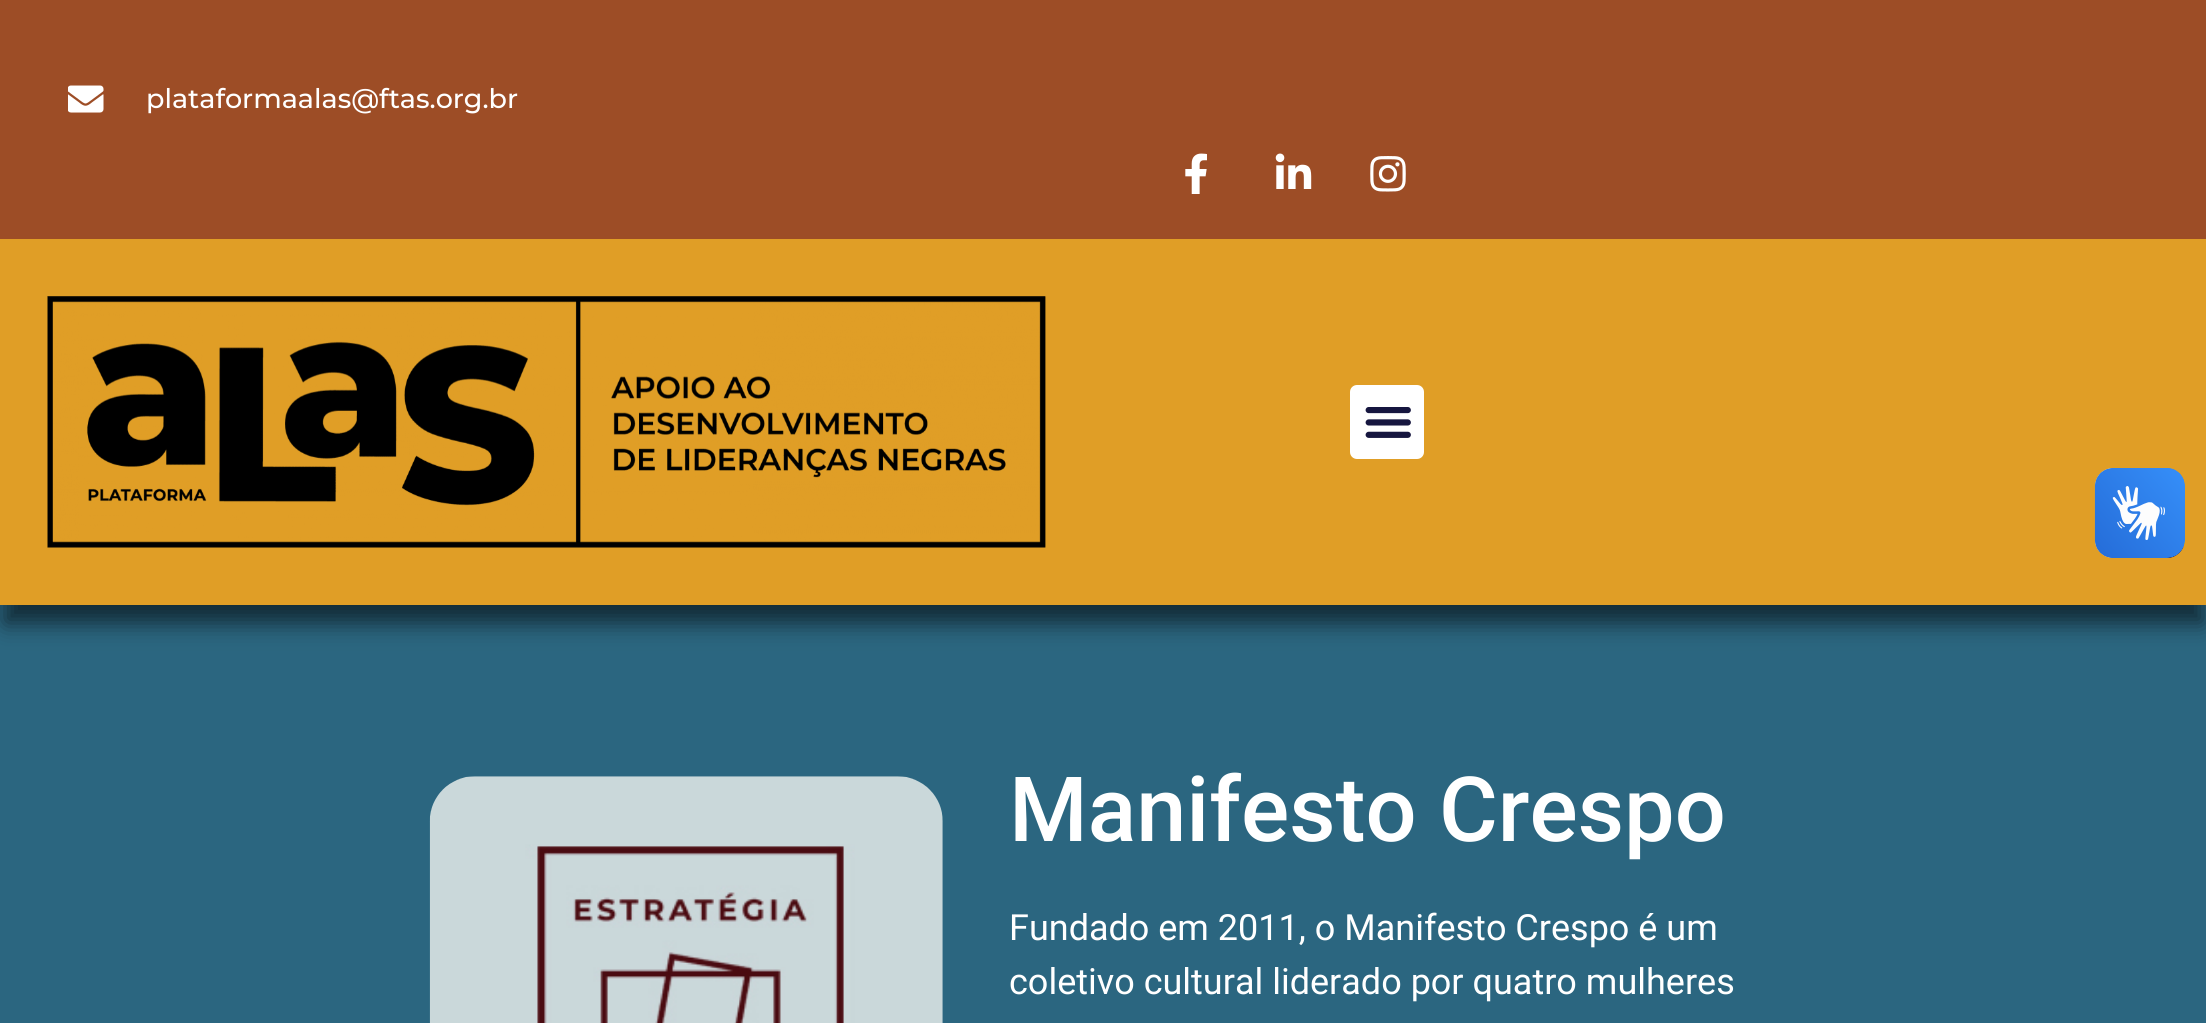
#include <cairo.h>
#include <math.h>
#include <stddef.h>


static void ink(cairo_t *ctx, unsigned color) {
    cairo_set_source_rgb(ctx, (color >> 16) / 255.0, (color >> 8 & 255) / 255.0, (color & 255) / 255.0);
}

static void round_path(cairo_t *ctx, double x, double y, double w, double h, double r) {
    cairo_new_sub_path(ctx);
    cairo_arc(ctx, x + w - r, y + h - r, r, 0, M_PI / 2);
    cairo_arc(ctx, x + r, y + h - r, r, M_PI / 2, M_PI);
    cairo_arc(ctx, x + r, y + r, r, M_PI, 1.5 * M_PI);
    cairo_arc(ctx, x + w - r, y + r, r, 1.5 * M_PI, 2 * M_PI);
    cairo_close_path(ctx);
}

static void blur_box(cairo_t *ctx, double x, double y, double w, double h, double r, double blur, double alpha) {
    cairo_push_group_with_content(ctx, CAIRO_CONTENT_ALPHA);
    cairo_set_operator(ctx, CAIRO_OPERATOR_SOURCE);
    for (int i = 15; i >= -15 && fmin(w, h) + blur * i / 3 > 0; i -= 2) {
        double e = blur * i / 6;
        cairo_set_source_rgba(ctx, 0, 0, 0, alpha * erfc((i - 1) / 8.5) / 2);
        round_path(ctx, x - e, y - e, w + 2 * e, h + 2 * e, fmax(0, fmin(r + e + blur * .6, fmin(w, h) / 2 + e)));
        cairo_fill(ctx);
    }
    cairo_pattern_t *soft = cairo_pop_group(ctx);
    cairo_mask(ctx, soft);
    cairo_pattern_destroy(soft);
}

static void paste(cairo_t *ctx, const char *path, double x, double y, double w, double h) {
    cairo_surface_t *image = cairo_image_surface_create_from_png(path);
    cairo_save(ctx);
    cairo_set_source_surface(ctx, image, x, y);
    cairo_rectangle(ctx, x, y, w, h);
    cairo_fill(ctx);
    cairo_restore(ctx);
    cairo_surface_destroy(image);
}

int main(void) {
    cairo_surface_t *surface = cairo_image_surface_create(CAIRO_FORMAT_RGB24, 2206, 1023);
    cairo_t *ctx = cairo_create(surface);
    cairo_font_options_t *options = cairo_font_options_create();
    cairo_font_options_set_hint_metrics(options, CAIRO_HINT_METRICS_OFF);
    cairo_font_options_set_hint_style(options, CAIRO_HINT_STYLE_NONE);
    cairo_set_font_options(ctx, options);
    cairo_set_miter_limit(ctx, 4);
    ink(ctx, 0x2B6680);
    cairo_paint(ctx);
    ink(ctx, 0x9D4D26);
    cairo_rectangle(ctx, 0, 0, 2206, 239);
    cairo_fill(ctx);
    paste(ctx, "media/1.png", 68, 85, 36, 28);
    cairo_select_font_face(ctx, "Montserrat Medium", CAIRO_FONT_SLANT_NORMAL, CAIRO_FONT_WEIGHT_NORMAL);
    cairo_set_font_size(ctx, 27);
    ink(ctx, 0xFFFFFF);
    cairo_move_to(ctx, 146, 108);
    cairo_show_text(ctx, "plataformaalas@ftas.org.br");
    paste(ctx, "media/2.png", 1185, 153, 22, 41);
    paste(ctx, "media/3.png", 1275, 153, 37, 36);
    paste(ctx, "media/4.png", 1370, 156, 36, 36);
    ink(ctx, 0x000000);
    blur_box(ctx, 5, 266, 2198, 357, 0, 11, 0.58);
    ink(ctx, 0xE09E26);
    cairo_rectangle(ctx, 0, 239, 2206, 366);
    cairo_fill(ctx);
    paste(ctx, "media/5.png", 47, 296, 999, 252);
    ink(ctx, 0xFFFFFF);
    round_path(ctx, 1350, 385, 74, 74, 7);
    cairo_fill(ctx);
    paste(ctx, "media/6.png", 1365, 407, 46, 31);
    paste(ctx, "media/7.png", 2094, 468, 91, 90);
    paste(ctx, "media/8.png", 2095, 468, 90, 90);
    paste(ctx, "media/9.png", 429, 776, 514, 247);
    cairo_select_font_face(ctx, "Roboto Medium", CAIRO_FONT_SLANT_NORMAL, CAIRO_FONT_WEIGHT_NORMAL);
    cairo_set_font_size(ctx, 90);
    cairo_move_to(ctx, 1009, 841);
    cairo_show_text(ctx, "Manifesto Crespo");
    cairo_select_font_face(ctx, "Roboto", CAIRO_FONT_SLANT_NORMAL, CAIRO_FONT_WEIGHT_NORMAL);
    cairo_set_font_size(ctx, 36);
    cairo_move_to(ctx, 1009, 940);
    cairo_show_text(ctx, "Fundado em 2011, o Manifesto Crespo é um");
    cairo_move_to(ctx, 1009, 994);
    cairo_show_text(ctx, "coletivo cultural liderado por quatro mulheres");
    cairo_surface_write_to_png(surface, "image.png");
    cairo_font_options_destroy(options);
    cairo_destroy(ctx);
    cairo_surface_destroy(surface);
    return 0;
}
